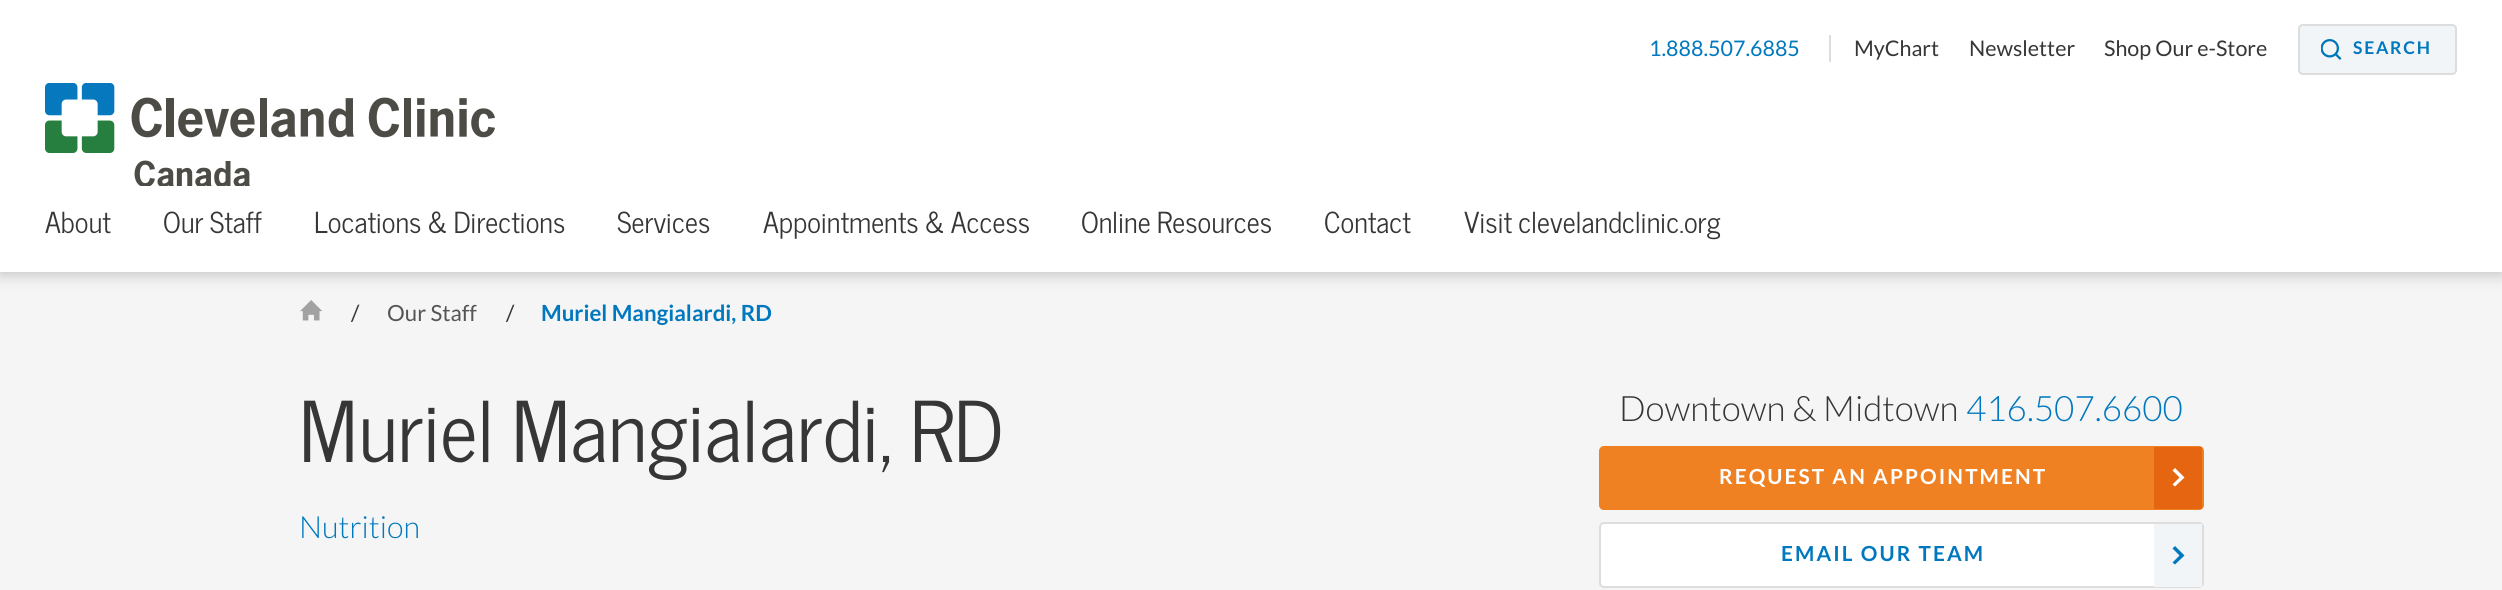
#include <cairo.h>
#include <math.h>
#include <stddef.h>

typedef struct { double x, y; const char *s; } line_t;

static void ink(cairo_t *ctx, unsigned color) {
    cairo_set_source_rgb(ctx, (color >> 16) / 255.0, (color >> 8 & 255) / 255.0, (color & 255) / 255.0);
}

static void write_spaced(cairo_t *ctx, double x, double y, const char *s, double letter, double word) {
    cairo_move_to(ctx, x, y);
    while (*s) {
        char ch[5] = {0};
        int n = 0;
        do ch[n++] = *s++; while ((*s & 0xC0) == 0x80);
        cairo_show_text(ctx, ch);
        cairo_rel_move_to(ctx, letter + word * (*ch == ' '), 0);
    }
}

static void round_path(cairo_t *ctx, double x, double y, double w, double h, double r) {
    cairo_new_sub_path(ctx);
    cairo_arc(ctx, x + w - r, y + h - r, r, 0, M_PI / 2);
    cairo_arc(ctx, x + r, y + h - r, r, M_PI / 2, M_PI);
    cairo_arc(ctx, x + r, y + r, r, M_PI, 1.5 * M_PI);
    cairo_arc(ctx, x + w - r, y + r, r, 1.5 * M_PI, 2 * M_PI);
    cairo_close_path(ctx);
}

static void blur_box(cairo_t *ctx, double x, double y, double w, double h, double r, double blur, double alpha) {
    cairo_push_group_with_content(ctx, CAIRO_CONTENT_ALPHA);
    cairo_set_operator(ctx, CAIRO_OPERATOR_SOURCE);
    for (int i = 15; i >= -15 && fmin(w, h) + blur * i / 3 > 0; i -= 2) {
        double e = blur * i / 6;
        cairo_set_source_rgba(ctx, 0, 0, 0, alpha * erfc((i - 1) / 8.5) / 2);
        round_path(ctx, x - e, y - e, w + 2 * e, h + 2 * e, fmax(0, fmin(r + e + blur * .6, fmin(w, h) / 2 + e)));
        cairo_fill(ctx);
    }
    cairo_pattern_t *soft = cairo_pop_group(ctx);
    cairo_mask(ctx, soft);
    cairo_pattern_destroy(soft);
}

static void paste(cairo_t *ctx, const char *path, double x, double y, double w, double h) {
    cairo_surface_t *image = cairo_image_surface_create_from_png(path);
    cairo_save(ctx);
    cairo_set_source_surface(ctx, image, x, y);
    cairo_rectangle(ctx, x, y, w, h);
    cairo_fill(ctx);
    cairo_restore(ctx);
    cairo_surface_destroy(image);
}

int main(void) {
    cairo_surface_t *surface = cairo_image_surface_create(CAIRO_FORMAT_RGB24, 2502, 590);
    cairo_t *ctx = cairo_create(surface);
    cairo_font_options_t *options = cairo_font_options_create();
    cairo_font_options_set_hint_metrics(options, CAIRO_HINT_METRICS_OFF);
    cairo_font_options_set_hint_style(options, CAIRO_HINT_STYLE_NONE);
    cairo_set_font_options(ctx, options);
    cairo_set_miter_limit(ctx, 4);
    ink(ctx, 0xF5F5F5);
    cairo_paint(ctx);
    ink(ctx, 0x000000);
    blur_box(ctx, 0, 3, 2502, 272, 0, 7.5, 0.2);
    ink(ctx, 0xFFFFFF);
    cairo_rectangle(ctx, 0, 0, 2502, 272);
    cairo_fill(ctx);
    cairo_select_font_face(ctx, "Lato", CAIRO_FONT_SLANT_NORMAL, CAIRO_FONT_WEIGHT_NORMAL);
    cairo_set_font_size(ctx, 21.5);
    ink(ctx, 0x0078BF);
    cairo_move_to(ctx, 1649, 56);
    cairo_show_text(ctx, "1.888.507.6885");
    ink(ctx, 0xDDDDDD);
    cairo_rectangle(ctx, 1829, 35, 2, 27);
    cairo_fill(ctx);
    ink(ctx, 0x363636);
    {
        static const line_t items[] = {
            {1854, 56, "MyChart"},
            {1969, 56, "Newsletter"},
            {2104, 56, "Shop Our e-Store"},
        };
        for (size_t i = 0; i < sizeof items / sizeof *items; i++) {
            cairo_move_to(ctx, items[i].x, items[i].y);
            cairo_show_text(ctx, items[i].s);
        }
    }
    ink(ctx, 0xF1F5F8);
    round_path(ctx, 2298, 24, 159, 51, 5);
    cairo_fill(ctx);
    paste(ctx, "media/1.png", 2321, 39, 21, 21);
    round_path(ctx, 2299, 25, 157, 49, 4);
    ink(ctx, 0xDDDDDD);
    cairo_stroke(ctx);
    cairo_select_font_face(ctx, "Lato", CAIRO_FONT_SLANT_NORMAL, CAIRO_FONT_WEIGHT_BOLD);
    cairo_set_font_size(ctx, 17.5);
    ink(ctx, 0x0078BF);
    write_spaced(ctx, 2353, 54, "SEARCH", 1.75, 0);
    paste(ctx, "media/2.png", 45, 83, 450, 103);
    cairo_select_font_face(ctx, "News Cycle", CAIRO_FONT_SLANT_NORMAL, CAIRO_FONT_WEIGHT_NORMAL);
    cairo_set_font_size(ctx, 28.75);
    ink(ctx, 0x363636);
    cairo_move_to(ctx, 45, 233);
    cairo_show_text(ctx, "About");
    write_spaced(ctx, 163, 233, "Our Staff", 0, -1);
    write_spaced(ctx, 314, 233, "Locations & Directions", 0, -1);
    cairo_move_to(ctx, 617, 233);
    cairo_show_text(ctx, "Services");
    write_spaced(ctx, 763, 233, "Appointments & Access", 0, -1);
    write_spaced(ctx, 1081, 233, "Online Resources", 0, -1);
    cairo_move_to(ctx, 1324, 233);
    cairo_show_text(ctx, "Contact");
    write_spaced(ctx, 1464, 233, "Visit clevelandclinic.org", 0, -1);
    paste(ctx, "media/3.png", 300, 300, 22, 21);
    cairo_select_font_face(ctx, "Lato", CAIRO_FONT_SLANT_NORMAL, CAIRO_FONT_WEIGHT_NORMAL);
    cairo_set_font_size(ctx, 22.25);
    cairo_move_to(ctx, 351, 321);
    cairo_show_text(ctx, "/");
    ink(ctx, 0x555555);
    cairo_move_to(ctx, 387, 321);
    cairo_show_text(ctx, "Our Staff");
    ink(ctx, 0x363636);
    cairo_move_to(ctx, 506, 321);
    cairo_show_text(ctx, "/");
    cairo_select_font_face(ctx, "Lato", CAIRO_FONT_SLANT_NORMAL, CAIRO_FONT_WEIGHT_BOLD);
    ink(ctx, 0x0078BF);
    cairo_move_to(ctx, 541, 321);
    cairo_show_text(ctx, "Muriel Mangialardi, RD");
    cairo_select_font_face(ctx, "News Cycle", CAIRO_FONT_SLANT_NORMAL, CAIRO_FONT_WEIGHT_NORMAL);
    cairo_set_font_size(ctx, 82.9);
    ink(ctx, 0x363636);
    write_spaced(ctx, 299, 462, "Muriel Mangialardi, RD", 0, -4);
    cairo_select_font_face(ctx, "Lato Light", CAIRO_FONT_SLANT_NORMAL, CAIRO_FONT_WEIGHT_NORMAL);
    cairo_set_font_size(ctx, 30.5);
    ink(ctx, 0x0078BF);
    cairo_move_to(ctx, 299, 538);
    cairo_show_text(ctx, "Nutrition");
    cairo_set_font_size(ctx, 35);
    ink(ctx, 0x363636);
    cairo_move_to(ctx, 1619, 421);
    cairo_show_text(ctx, "Downtown & Midtown");
    ink(ctx, 0x0078BF);
    cairo_move_to(ctx, 1966, 421);
    cairo_show_text(ctx, "416.507.6600");
    ink(ctx, 0xF08122);
    round_path(ctx, 1600, 447, 603, 62, 4);
    cairo_fill_preserve(ctx);
    cairo_stroke(ctx);
    cairo_select_font_face(ctx, "Lato", CAIRO_FONT_SLANT_NORMAL, CAIRO_FONT_WEIGHT_BOLD);
    cairo_set_font_size(ctx, 20.75);
    ink(ctx, 0xFFFFFF);
    write_spaced(ctx, 1719, 484, "REQUEST AN APPOINTMENT", 2.1, 0);
    ink(ctx, 0xE56510);
    cairo_rectangle(ctx, 2154, 447, 48, 62);
    cairo_fill(ctx);
    ink(ctx, 0xFFFFFF);
    cairo_set_fill_rule(ctx, CAIRO_FILL_RULE_EVEN_ODD);
    cairo_new_path(ctx);
    cairo_move_to(ctx, 2172.5, 470.5);
    cairo_line_to(ctx, 2175, 468);
    cairo_line_to(ctx, 2184.5, 477.5);
    cairo_line_to(ctx, 2175, 486.5);
    cairo_line_to(ctx, 2172.5, 484.5);
    cairo_line_to(ctx, 2179.5, 477.5);
    cairo_close_path(ctx);
    cairo_fill(ctx);
    round_path(ctx, 1600, 523, 603, 64, 4);
    cairo_fill_preserve(ctx);
    ink(ctx, 0xDDDDDD);
    cairo_stroke(ctx);
    ink(ctx, 0x0078BF);
    write_spaced(ctx, 1781, 561, "EMAIL OUR TEAM", 2.1, 0);
    ink(ctx, 0xF1F5F8);
    cairo_rectangle(ctx, 2154, 524, 48, 63);
    cairo_fill(ctx);
    ink(ctx, 0x0078BF);
    cairo_new_path(ctx);
    cairo_move_to(ctx, 2172.5, 548.5);
    cairo_line_to(ctx, 2175, 546);
    cairo_line_to(ctx, 2184.5, 555.5);
    cairo_line_to(ctx, 2175, 564.5);
    cairo_line_to(ctx, 2172.5, 562.5);
    cairo_line_to(ctx, 2179.5, 555.5);
    cairo_close_path(ctx);
    cairo_fill(ctx);
    cairo_surface_write_to_png(surface, "image.png");
    cairo_font_options_destroy(options);
    cairo_destroy(ctx);
    cairo_surface_destroy(surface);
    return 0;
}
